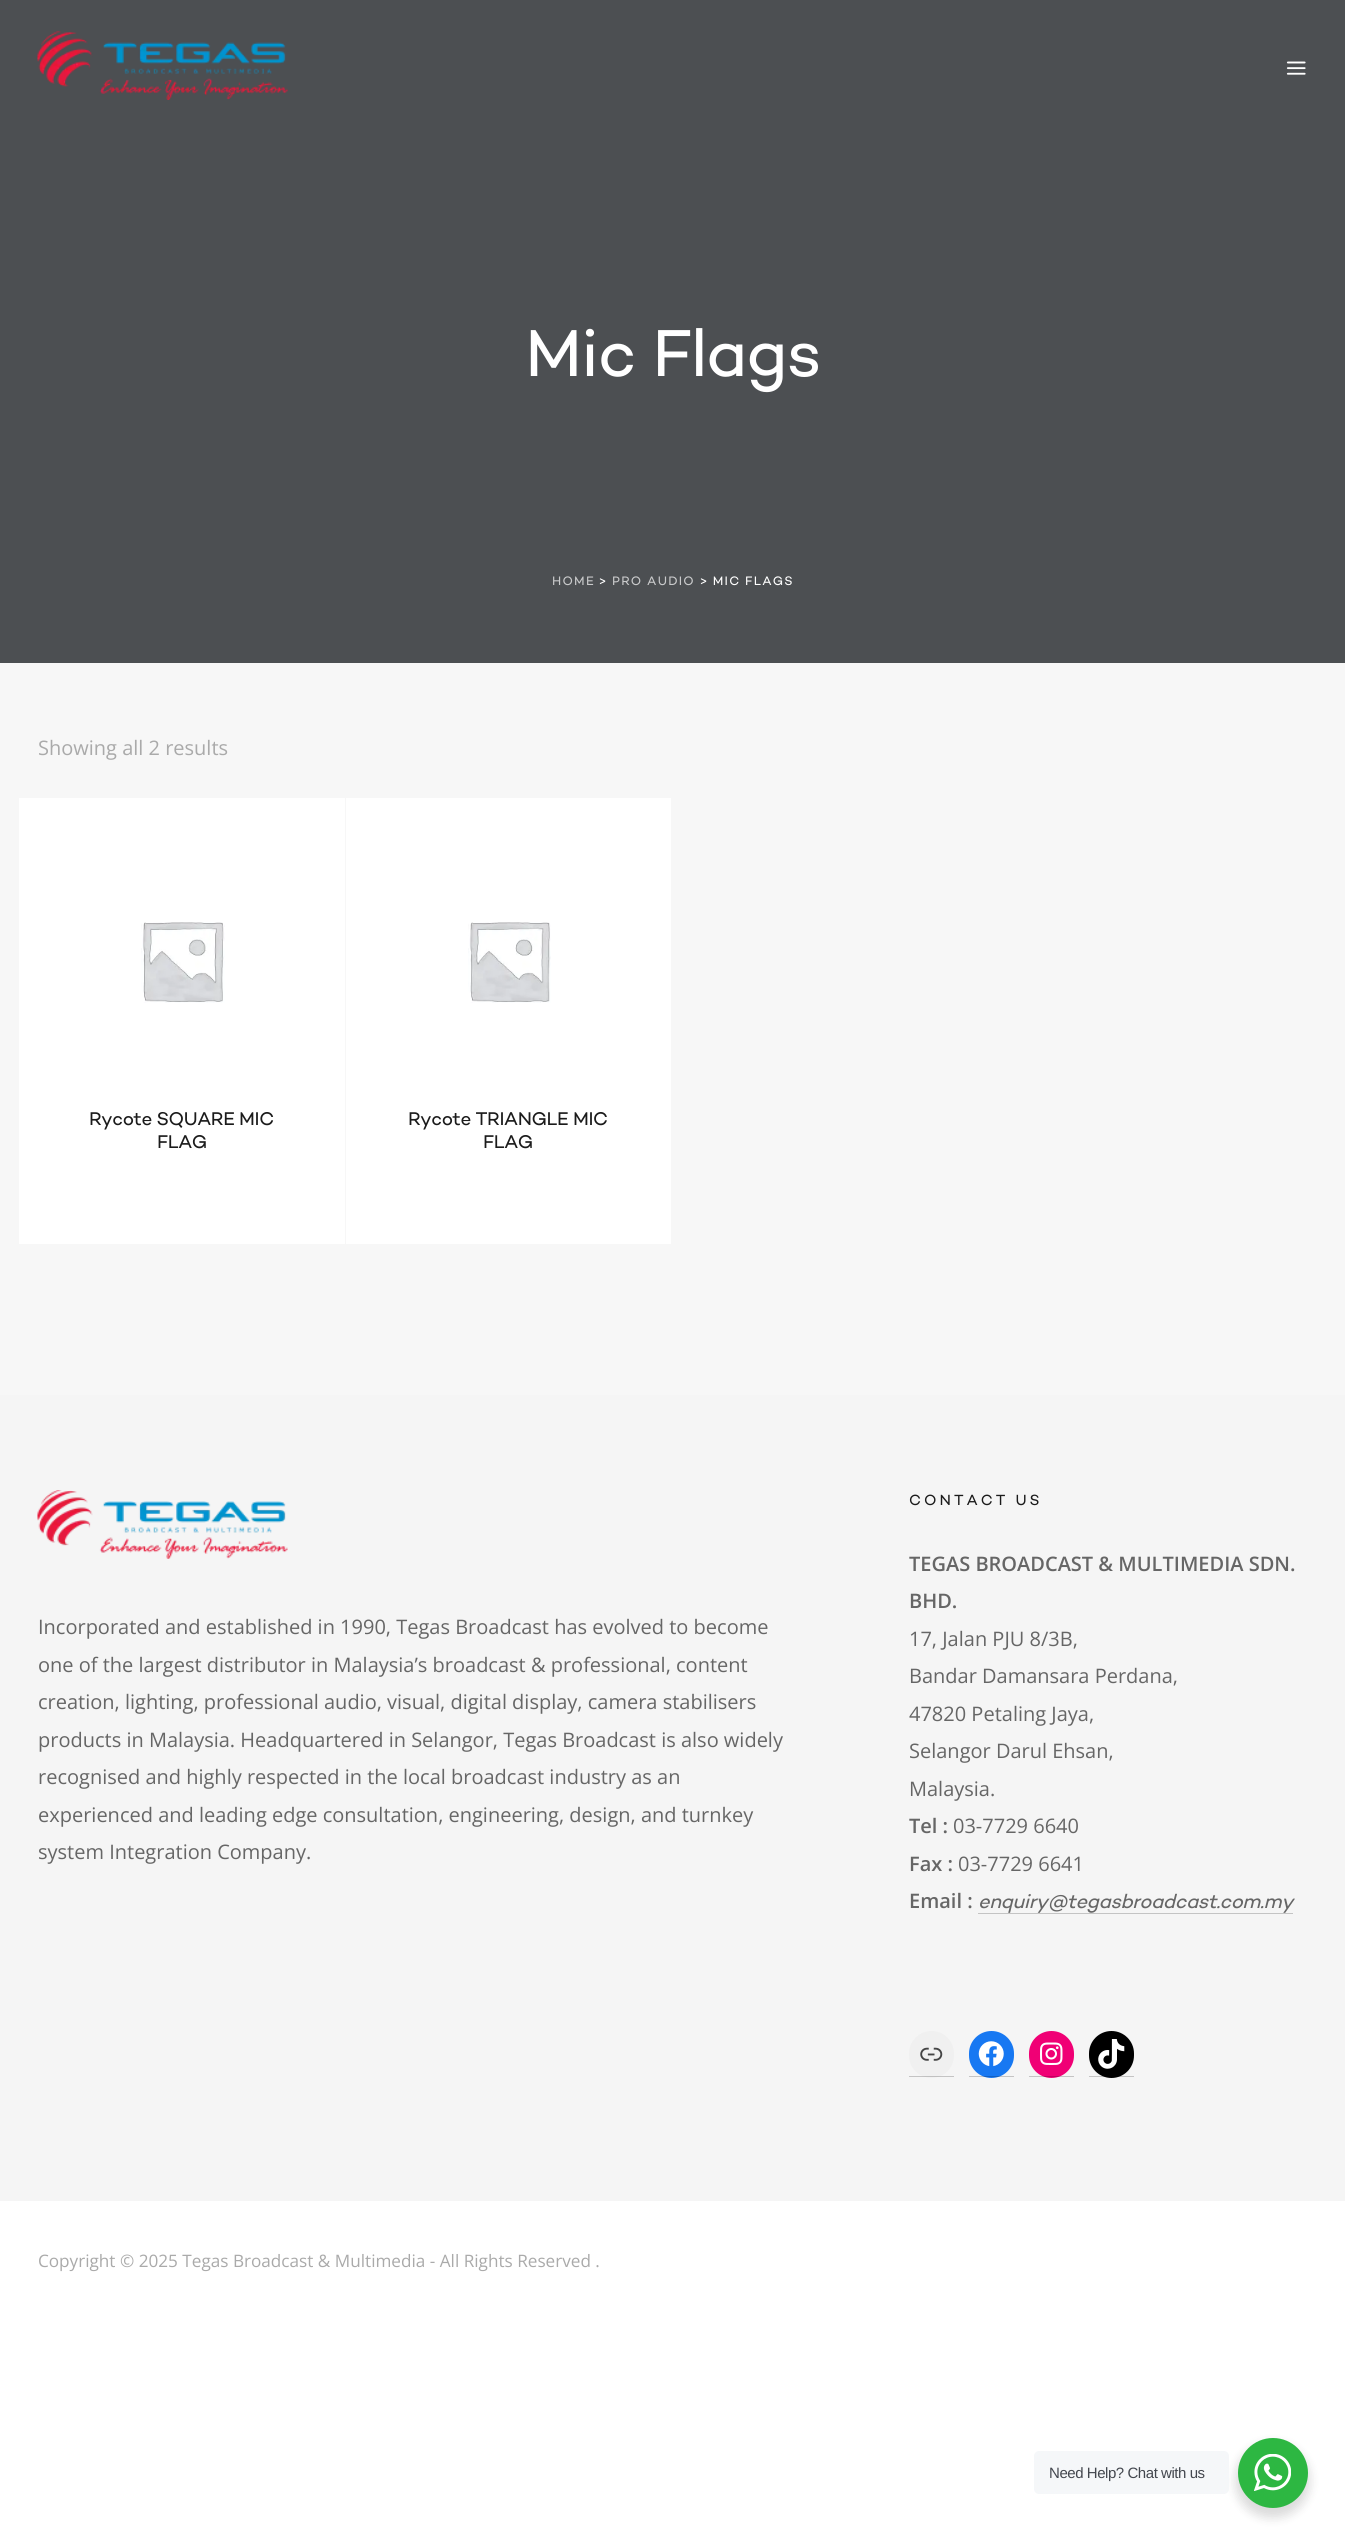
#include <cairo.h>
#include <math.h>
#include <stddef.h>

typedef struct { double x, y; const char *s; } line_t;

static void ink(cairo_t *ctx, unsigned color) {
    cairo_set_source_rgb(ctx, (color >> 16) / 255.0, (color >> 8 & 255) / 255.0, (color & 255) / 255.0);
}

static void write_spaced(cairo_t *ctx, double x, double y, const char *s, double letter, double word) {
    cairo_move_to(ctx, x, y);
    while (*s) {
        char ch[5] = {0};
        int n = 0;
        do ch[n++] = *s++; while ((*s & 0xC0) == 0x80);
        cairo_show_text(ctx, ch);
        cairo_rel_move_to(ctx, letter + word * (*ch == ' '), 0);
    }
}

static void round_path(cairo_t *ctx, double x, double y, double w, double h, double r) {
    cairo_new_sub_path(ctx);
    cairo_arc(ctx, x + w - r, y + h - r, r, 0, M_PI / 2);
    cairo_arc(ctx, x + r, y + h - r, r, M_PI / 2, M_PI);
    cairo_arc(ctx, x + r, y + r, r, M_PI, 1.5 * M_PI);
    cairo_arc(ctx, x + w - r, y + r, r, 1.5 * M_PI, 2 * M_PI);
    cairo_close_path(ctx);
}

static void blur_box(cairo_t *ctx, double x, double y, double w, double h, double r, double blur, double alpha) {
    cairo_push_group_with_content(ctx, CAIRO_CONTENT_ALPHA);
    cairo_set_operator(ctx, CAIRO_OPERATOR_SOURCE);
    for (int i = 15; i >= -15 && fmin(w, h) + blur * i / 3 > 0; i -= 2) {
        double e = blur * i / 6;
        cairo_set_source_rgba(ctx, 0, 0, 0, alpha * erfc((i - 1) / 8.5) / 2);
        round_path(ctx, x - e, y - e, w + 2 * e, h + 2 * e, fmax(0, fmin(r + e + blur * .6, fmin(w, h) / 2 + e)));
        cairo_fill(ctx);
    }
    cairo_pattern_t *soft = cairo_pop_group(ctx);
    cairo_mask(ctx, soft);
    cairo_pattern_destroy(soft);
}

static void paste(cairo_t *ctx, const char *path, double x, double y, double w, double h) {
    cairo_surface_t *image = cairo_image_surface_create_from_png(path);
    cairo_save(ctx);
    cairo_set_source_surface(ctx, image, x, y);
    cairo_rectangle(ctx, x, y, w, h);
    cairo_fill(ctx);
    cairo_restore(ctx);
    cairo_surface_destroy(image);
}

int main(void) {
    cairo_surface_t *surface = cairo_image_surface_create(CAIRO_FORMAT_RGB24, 1345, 2544);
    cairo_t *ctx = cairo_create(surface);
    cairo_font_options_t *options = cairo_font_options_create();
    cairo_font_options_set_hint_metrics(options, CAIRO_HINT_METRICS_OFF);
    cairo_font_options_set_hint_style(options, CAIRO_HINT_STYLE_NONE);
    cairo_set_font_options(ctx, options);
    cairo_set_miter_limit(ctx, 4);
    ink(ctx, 0xFFFFFF);
    cairo_paint(ctx);
    ink(ctx, 0x4C4F52);
    cairo_rectangle(ctx, 0, 0, 1345, 663);
    cairo_fill(ctx);
    paste(ctx, "media/1.png", 37, 31, 251, 69);
    paste(ctx, "media/2.png", 1286, 61, 20, 14);
    cairo_select_font_face(ctx, "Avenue", CAIRO_FONT_SLANT_NORMAL, CAIRO_FONT_WEIGHT_NORMAL);
    cairo_set_font_size(ctx, 67.5);
    ink(ctx, 0xFFFFFF);
    write_spaced(ctx, 525, 376, "Mic Flags", -1.25, 0);
    cairo_set_font_size(ctx, 12.5);
    ink(ctx, 0xC9CACB);
    write_spaced(ctx, 552, 585, "HOME", 1.25, 0);
    ink(ctx, 0xFFFFFF);
    write_spaced(ctx, 599, 585, ">", 1.25, 0);
    ink(ctx, 0xC9CACB);
    write_spaced(ctx, 612, 585, "PRO AUDIO", 1.25, 0);
    ink(ctx, 0xFFFFFF);
    write_spaced(ctx, 700, 585, "> MIC FLAGS", 1.25, 0);
    ink(ctx, 0xF7F7F7);
    cairo_rectangle(ctx, 0, 663, 1345, 732);
    cairo_fill(ctx);
    cairo_select_font_face(ctx, "Open Sans", CAIRO_FONT_SLANT_NORMAL, CAIRO_FONT_WEIGHT_NORMAL);
    cairo_set_font_size(ctx, 20);
    ink(ctx, 0xAAAAAA);
    cairo_move_to(ctx, 38, 755);
    cairo_show_text(ctx, "Showing all 2 results");
    ink(ctx, 0xFFFFFF);
    cairo_rectangle(ctx, 19, 798, 326, 446);
    cairo_fill(ctx);
    paste(ctx, "media/3.png", 141, 922, 84, 81);
    cairo_select_font_face(ctx, "Avenue", CAIRO_FONT_SLANT_NORMAL, CAIRO_FONT_WEIGHT_NORMAL);
    cairo_set_font_size(ctx, 18.75);
    ink(ctx, 0x1B1B1B);
    write_spaced(ctx, 89, 1125, "Rycote SQUARE MIC", -0.4, 0);
    write_spaced(ctx, 157, 1148, "FLAG", -0.4, 0);
    ink(ctx, 0xFFFFFF);
    cairo_rectangle(ctx, 346, 798, 325, 446);
    cairo_fill(ctx);
    paste(ctx, "media/4.png", 468, 922, 83, 81);
    ink(ctx, 0x1B1B1B);
    write_spaced(ctx, 408, 1125, "Rycote TRIANGLE MIC", -0.4, 0);
    write_spaced(ctx, 483, 1148, "FLAG", -0.4, 0);
    ink(ctx, 0xF5F5F5);
    cairo_rectangle(ctx, 0, 1395, 1345, 806);
    cairo_fill(ctx);
    paste(ctx, "media/5.png", 37, 1490, 251, 69);
    cairo_select_font_face(ctx, "Open Sans", CAIRO_FONT_SLANT_NORMAL, CAIRO_FONT_WEIGHT_NORMAL);
    cairo_set_font_size(ctx, 20);
    ink(ctx, 0x666666);
    {
        static const line_t items[] = {
            {38, 1634, "Incorporated and established in 1990, Tegas Broadcast has evolved to become"},
            {38, 1672, "one of the largest distributor in Malaysia’s broadcast & professional, content"},
            {38, 1709, "creation, lighting, professional audio, visual, digital display, camera stabilisers"},
            {38, 1747, "products in Malaysia. Headquartered in Selangor, Tegas Broadcast is also widely"},
            {38, 1784, "recognised and highly respected in the local broadcast industry as an"},
            {38, 1822, "experienced and leading edge consultation, engineering, design, and turnkey"},
            {38, 1859, "system Integration Company."},
        };
        for (size_t i = 0; i < sizeof items / sizeof *items; i++) {
            cairo_move_to(ctx, items[i].x, items[i].y);
            cairo_show_text(ctx, items[i].s);
        }
    }
    cairo_select_font_face(ctx, "Avenue", CAIRO_FONT_SLANT_NORMAL, CAIRO_FONT_WEIGHT_NORMAL);
    cairo_set_font_size(ctx, 15);
    ink(ctx, 0x1B1B1B);
    write_spaced(ctx, 909, 1505, "CONTACT US", 3, 0);
    cairo_select_font_face(ctx, "Open Sans SemiBold", CAIRO_FONT_SLANT_NORMAL, CAIRO_FONT_WEIGHT_NORMAL);
    cairo_set_font_size(ctx, 20);
    ink(ctx, 0x666666);
    cairo_move_to(ctx, 909, 1571);
    cairo_show_text(ctx, "TEGAS BROADCAST & MULTIMEDIA SDN.");
    cairo_move_to(ctx, 909, 1608);
    cairo_show_text(ctx, "BHD.");
    cairo_select_font_face(ctx, "Open Sans", CAIRO_FONT_SLANT_NORMAL, CAIRO_FONT_WEIGHT_NORMAL);
    {
        static const line_t items[] = {
            {909, 1646, "17, Jalan PJU 8/3B,"},
            {909, 1683, "Bandar Damansara Perdana,"},
            {909, 1721, "47820 Petaling Jaya,"},
            {909, 1758, "Selangor Darul Ehsan,"},
            {909, 1796, "Malaysia."},
        };
        for (size_t i = 0; i < sizeof items / sizeof *items; i++) {
            cairo_move_to(ctx, items[i].x, items[i].y);
            cairo_show_text(ctx, items[i].s);
        }
    }
    cairo_select_font_face(ctx, "Open Sans SemiBold", CAIRO_FONT_SLANT_NORMAL, CAIRO_FONT_WEIGHT_NORMAL);
    cairo_move_to(ctx, 909, 1833);
    cairo_show_text(ctx, "Tel :");
    cairo_select_font_face(ctx, "Open Sans", CAIRO_FONT_SLANT_NORMAL, CAIRO_FONT_WEIGHT_NORMAL);
    cairo_move_to(ctx, 953, 1833);
    cairo_show_text(ctx, "03-7729 6640");
    cairo_select_font_face(ctx, "Open Sans SemiBold", CAIRO_FONT_SLANT_NORMAL, CAIRO_FONT_WEIGHT_NORMAL);
    cairo_move_to(ctx, 909, 1871);
    cairo_show_text(ctx, "Fax :");
    cairo_select_font_face(ctx, "Open Sans", CAIRO_FONT_SLANT_NORMAL, CAIRO_FONT_WEIGHT_NORMAL);
    cairo_move_to(ctx, 958, 1871);
    cairo_show_text(ctx, "03-7729 6641");
    cairo_select_font_face(ctx, "Open Sans SemiBold", CAIRO_FONT_SLANT_NORMAL, CAIRO_FONT_WEIGHT_NORMAL);
    cairo_move_to(ctx, 909, 1908);
    cairo_show_text(ctx, "Email :");
    cairo_select_font_face(ctx, "Avenue", CAIRO_FONT_SLANT_ITALIC, CAIRO_FONT_WEIGHT_NORMAL);
    write_spaced(ctx, 978, 1908, "enquiry@tegasbroadcast.com.my", -0.4, 0);
    ink(ctx, 0xC4C4C4);
    cairo_rectangle(ctx, 978, 1913, 315, 1);
    cairo_fill(ctx);
    ink(ctx, 0xF0F0F0);
    round_path(ctx, 909, 2031, 45, 47, 22.5);
    cairo_fill(ctx);
    cairo_set_source_rgba(ctx, 0, 0, 0, 0.2);
    cairo_rectangle(ctx, 909, 2076, 45, 1);
    cairo_fill(ctx);
    paste(ctx, "media/6.png", 920, 2047, 23, 14);
    ink(ctx, 0x1778F2);
    round_path(ctx, 969, 2031, 45, 47, 22.5);
    cairo_fill(ctx);
    cairo_set_source_rgba(ctx, 0, 0, 0, 0.2);
    cairo_rectangle(ctx, 969, 2076, 45, 1);
    cairo_fill(ctx);
    paste(ctx, "media/7.png", 978, 2041, 26, 26);
    ink(ctx, 0xF00075);
    round_path(ctx, 1029, 2031, 45, 47, 22.5);
    cairo_fill(ctx);
    cairo_set_source_rgba(ctx, 0, 0, 0, 0.2);
    cairo_rectangle(ctx, 1029, 2076, 45, 1);
    cairo_fill(ctx);
    paste(ctx, "media/8.png", 1040, 2042, 23, 23);
    ink(ctx, 0x000000);
    round_path(ctx, 1089, 2031, 45, 47, 22.5);
    cairo_fill(ctx);
    cairo_set_source_rgba(ctx, 0, 0, 0, 0.2);
    cairo_rectangle(ctx, 1089, 2076, 45, 1);
    cairo_fill(ctx);
    paste(ctx, "media/9.png", 1098, 2039, 27, 30);
    cairo_select_font_face(ctx, "Open Sans", CAIRO_FONT_SLANT_NORMAL, CAIRO_FONT_WEIGHT_NORMAL);
    cairo_set_font_size(ctx, 17.15);
    ink(ctx, 0xAAAAAA);
    cairo_move_to(ctx, 38, 2267);
    cairo_show_text(ctx, "Copyright © 2025 Tegas Broadcast & Multimedia - All Rights Reserved .");
    ink(ctx, 0x000000);
    blur_box(ctx, 1235, 2443, 75, 75, 37.5, 5, 0.14);
    ink(ctx, 0xF5F7F9);
    round_path(ctx, 1034, 2451, 195, 43, 5);
    cairo_fill(ctx);
    cairo_select_font_face(ctx, "Liberation Sans", CAIRO_FONT_SLANT_NORMAL, CAIRO_FONT_WEIGHT_NORMAL);
    cairo_set_font_size(ctx, 15);
    ink(ctx, 0x43474E);
    write_spaced(ctx, 1049, 2478, "Need Help? Chat with us", -0.45, 0);
    ink(ctx, 0x2DB742);
    cairo_new_path(ctx);
    cairo_arc(ctx, 1273, 2473, 35, 0, 2 * M_PI);
    cairo_fill(ctx);
    paste(ctx, "media/10.png", 1254, 2454, 37, 37);
    cairo_surface_write_to_png(surface, "image.png");
    cairo_font_options_destroy(options);
    cairo_destroy(ctx);
    cairo_surface_destroy(surface);
    return 0;
}
